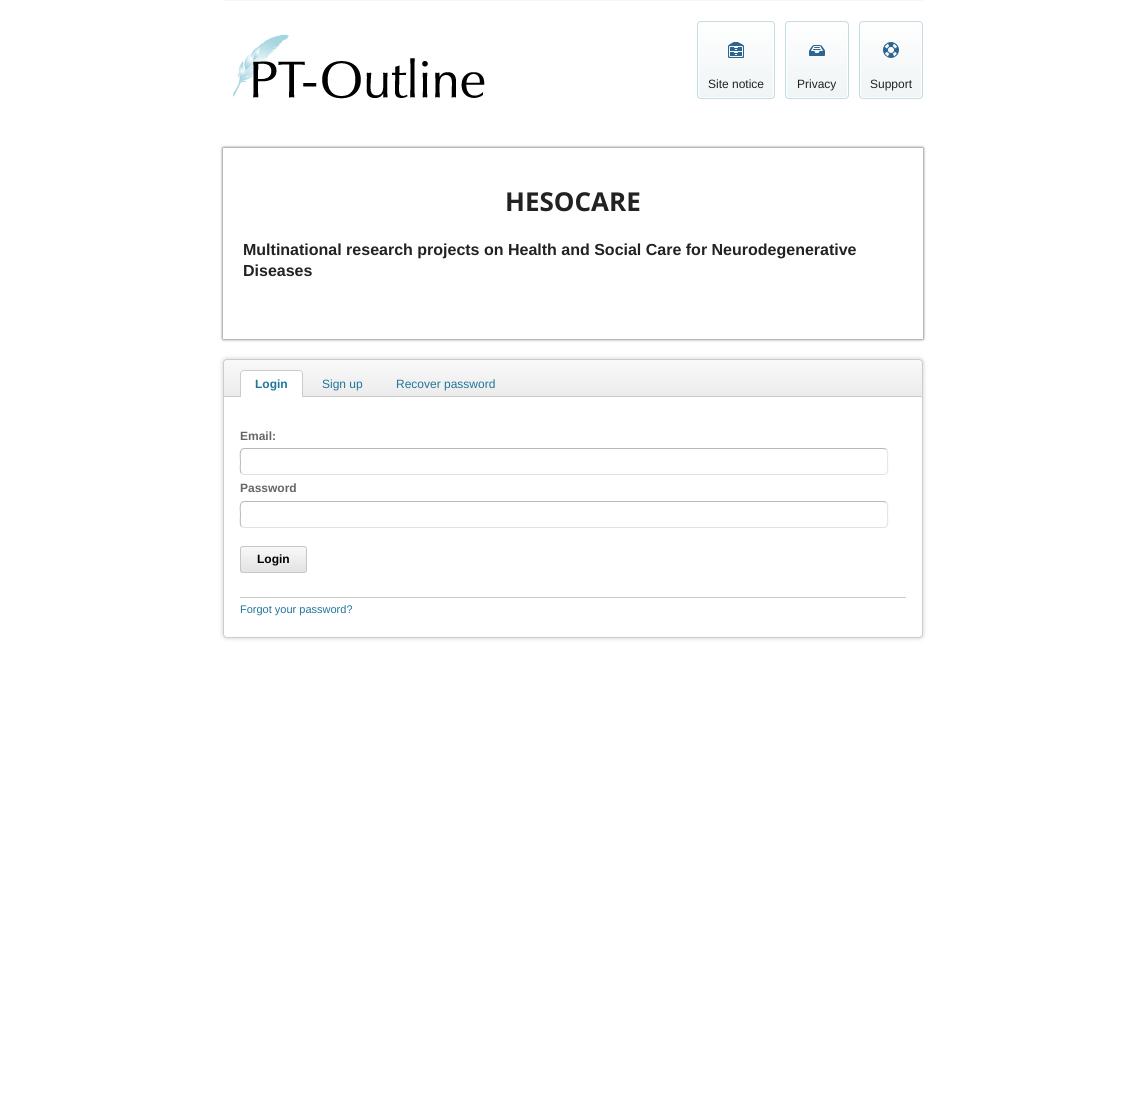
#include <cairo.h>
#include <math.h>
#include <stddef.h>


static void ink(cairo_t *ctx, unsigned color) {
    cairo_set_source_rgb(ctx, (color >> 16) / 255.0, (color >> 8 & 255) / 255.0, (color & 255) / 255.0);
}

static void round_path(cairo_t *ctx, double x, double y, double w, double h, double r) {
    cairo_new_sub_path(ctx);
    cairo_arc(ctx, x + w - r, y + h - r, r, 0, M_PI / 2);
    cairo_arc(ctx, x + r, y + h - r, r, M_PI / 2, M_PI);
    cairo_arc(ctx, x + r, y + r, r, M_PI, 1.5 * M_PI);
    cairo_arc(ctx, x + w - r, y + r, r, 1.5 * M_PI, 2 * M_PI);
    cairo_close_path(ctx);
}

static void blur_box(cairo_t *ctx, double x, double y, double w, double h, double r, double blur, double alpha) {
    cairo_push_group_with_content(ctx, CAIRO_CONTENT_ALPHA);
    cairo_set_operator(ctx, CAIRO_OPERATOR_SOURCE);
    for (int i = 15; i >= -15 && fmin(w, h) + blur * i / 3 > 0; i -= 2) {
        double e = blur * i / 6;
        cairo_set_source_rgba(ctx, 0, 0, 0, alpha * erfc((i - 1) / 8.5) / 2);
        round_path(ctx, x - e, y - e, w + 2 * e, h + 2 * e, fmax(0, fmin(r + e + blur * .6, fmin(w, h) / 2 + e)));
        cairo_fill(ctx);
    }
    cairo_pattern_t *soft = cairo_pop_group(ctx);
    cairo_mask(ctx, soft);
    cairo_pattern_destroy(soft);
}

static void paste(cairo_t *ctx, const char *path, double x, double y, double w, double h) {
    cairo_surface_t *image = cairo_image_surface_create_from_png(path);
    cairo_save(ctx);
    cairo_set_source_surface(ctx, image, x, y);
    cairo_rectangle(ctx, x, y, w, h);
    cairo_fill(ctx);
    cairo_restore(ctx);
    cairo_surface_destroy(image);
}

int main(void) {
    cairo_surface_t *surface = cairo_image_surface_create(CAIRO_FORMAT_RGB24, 1146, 1116);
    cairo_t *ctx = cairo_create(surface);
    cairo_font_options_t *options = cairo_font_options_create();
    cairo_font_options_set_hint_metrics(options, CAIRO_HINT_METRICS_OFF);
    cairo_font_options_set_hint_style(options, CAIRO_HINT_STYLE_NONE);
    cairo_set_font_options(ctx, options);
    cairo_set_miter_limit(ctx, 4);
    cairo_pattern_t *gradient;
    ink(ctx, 0xFFFFFF);
    cairo_paint(ctx);
    ink(ctx, 0xF7F7FA);
    cairo_rectangle(ctx, 223, 0, 700, 1);
    cairo_fill(ctx);
    paste(ctx, "media/1.png", 233, 34, 252, 65);
    cairo_save(ctx);
    round_path(ctx, 697, 21, 78, 78, 4);
    cairo_clip(ctx);
    gradient = cairo_pattern_create_linear(736, 22, 736, 98);
    cairo_pattern_add_color_stop_rgba(gradient, 0, 1, 1, 1, 1);
    cairo_pattern_add_color_stop_rgba(gradient, 1, 0.937, 0.957, 0.961, 1);
    cairo_set_source(ctx, gradient);
    cairo_pattern_destroy(gradient);
    cairo_rectangle(ctx, 697, 22, 78, 76);
    cairo_fill(ctx);
    cairo_restore(ctx);
    round_path(ctx, 698.5, 22.5, 75, 75, 2.5);
    ink(ctx, 0xFFFFFF);
    cairo_set_line_width(ctx, 1);
    cairo_stroke(ctx);
    round_path(ctx, 697.5, 21.5, 77, 77, 3.5);
    ink(ctx, 0xC0DDE4);
    cairo_stroke(ctx);
    paste(ctx, "media/2.png", 728, 42, 16, 16);
    cairo_select_font_face(ctx, "Liberation Sans", CAIRO_FONT_SLANT_NORMAL, CAIRO_FONT_WEIGHT_NORMAL);
    cairo_set_font_size(ctx, 12);
    ink(ctx, 0x222222);
    cairo_move_to(ctx, 708, 88);
    cairo_show_text(ctx, "Site notice");
    cairo_save(ctx);
    round_path(ctx, 785, 21, 64, 78, 4);
    cairo_clip(ctx);
    gradient = cairo_pattern_create_linear(817, 22, 817, 98);
    cairo_pattern_add_color_stop_rgba(gradient, 0, 1, 1, 1, 1);
    cairo_pattern_add_color_stop_rgba(gradient, 1, 0.937, 0.957, 0.961, 1);
    cairo_set_source(ctx, gradient);
    cairo_pattern_destroy(gradient);
    cairo_rectangle(ctx, 785, 22, 64, 76);
    cairo_fill(ctx);
    cairo_restore(ctx);
    round_path(ctx, 786.5, 22.5, 61, 75, 2.5);
    ink(ctx, 0xFFFFFF);
    cairo_stroke(ctx);
    round_path(ctx, 785.5, 21.5, 63, 77, 3.5);
    ink(ctx, 0xC0DDE4);
    cairo_stroke(ctx);
    paste(ctx, "media/3.png", 809, 45, 16, 11);
    ink(ctx, 0x222222);
    cairo_move_to(ctx, 797, 88);
    cairo_show_text(ctx, "Privacy");
    cairo_save(ctx);
    round_path(ctx, 859, 21, 64, 78, 4);
    cairo_clip(ctx);
    gradient = cairo_pattern_create_linear(891, 22, 891, 98);
    cairo_pattern_add_color_stop_rgba(gradient, 0, 1, 1, 1, 1);
    cairo_pattern_add_color_stop_rgba(gradient, 1, 0.937, 0.957, 0.961, 1);
    cairo_set_source(ctx, gradient);
    cairo_pattern_destroy(gradient);
    cairo_rectangle(ctx, 859, 22, 64, 76);
    cairo_fill(ctx);
    cairo_restore(ctx);
    round_path(ctx, 860.5, 22.5, 61, 75, 2.5);
    ink(ctx, 0xFFFFFF);
    cairo_stroke(ctx);
    round_path(ctx, 859.5, 21.5, 63, 77, 3.5);
    ink(ctx, 0xC0DDE4);
    cairo_stroke(ctx);
    paste(ctx, "media/4.png", 883, 42, 16, 16);
    ink(ctx, 0x222222);
    cairo_move_to(ctx, 870, 88);
    cairo_show_text(ctx, "Support");
    cairo_save(ctx);
    cairo_set_fill_rule(ctx, CAIRO_FILL_RULE_EVEN_ODD);
    cairo_new_path(ctx);
    cairo_move_to(ctx, 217, 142);
    cairo_line_to(ctx, 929, 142);
    cairo_line_to(ctx, 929, 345);
    cairo_line_to(ctx, 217, 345);
    cairo_close_path(ctx);
    cairo_move_to(ctx, 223, 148);
    cairo_line_to(ctx, 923, 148);
    cairo_line_to(ctx, 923, 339);
    cairo_line_to(ctx, 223, 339);
    cairo_close_path(ctx);
    cairo_clip(ctx);
    ink(ctx, 0x000000);
    blur_box(ctx, 223, 148, 700, 191, 0, 1.5, 0.75);
    cairo_restore(ctx);
    cairo_select_font_face(ctx, "Open Sans", CAIRO_FONT_SLANT_NORMAL, CAIRO_FONT_WEIGHT_BOLD);
    cairo_set_font_size(ctx, 26);
    cairo_move_to(ctx, 505, 211);
    cairo_show_text(ctx, "HESOCARE");
    cairo_select_font_face(ctx, "Liberation Sans", CAIRO_FONT_SLANT_NORMAL, CAIRO_FONT_WEIGHT_BOLD);
    cairo_set_font_size(ctx, 16);
    cairo_move_to(ctx, 243, 255);
    cairo_show_text(ctx, "Multinational research projects on Health and Social Care for Neurodegenerative");
    cairo_move_to(ctx, 243, 276);
    cairo_show_text(ctx, "Diseases");
    ink(ctx, 0xDDDDDD);
    blur_box(ctx, 222, 358, 702, 281, 5, 2, 1);
    ink(ctx, 0xFFFFFF);
    round_path(ctx, 223.5, 359.5, 699, 278, 3.5);
    cairo_fill_preserve(ctx);
    ink(ctx, 0xCCCCCC);
    cairo_stroke(ctx);
    gradient = cairo_pattern_create_linear(573, 360, 573, 396);
    cairo_pattern_add_color_stop_rgba(gradient, 0, 0.976, 0.976, 0.976, 1);
    cairo_pattern_add_color_stop_rgba(gradient, 1, 0.925, 0.925, 0.925, 1);
    cairo_set_source(ctx, gradient);
    cairo_pattern_destroy(gradient);
    cairo_new_path(ctx);
    cairo_move_to(ctx, 228, 360);
    cairo_line_to(ctx, 918, 360);
    cairo_curve_to(ctx, 920, 360, 922, 362, 922, 364);
    cairo_line_to(ctx, 922, 396);
    cairo_line_to(ctx, 224, 396);
    cairo_line_to(ctx, 224, 364);
    cairo_curve_to(ctx, 224, 362, 226, 360, 228, 360);
    cairo_close_path(ctx);
    cairo_fill(ctx);
    ink(ctx, 0xCCCCCC);
    cairo_rectangle(ctx, 224, 396, 698, 1);
    cairo_fill(ctx);
    ink(ctx, 0xFFFFFF);
    cairo_new_path(ctx);
    cairo_move_to(ctx, 244, 371);
    cairo_line_to(ctx, 299, 371);
    cairo_curve_to(ctx, 300.5, 371, 302, 372.5, 302, 374);
    cairo_line_to(ctx, 302, 397);
    cairo_line_to(ctx, 241, 397);
    cairo_line_to(ctx, 241, 374);
    cairo_curve_to(ctx, 241, 372.5, 242.5, 371, 244, 371);
    cairo_close_path(ctx);
    cairo_fill(ctx);
    ink(ctx, 0xCCCCCC);
    cairo_set_fill_rule(ctx, CAIRO_FILL_RULE_EVEN_ODD);
    cairo_new_path(ctx);
    cairo_move_to(ctx, 244, 370);
    cairo_line_to(ctx, 299, 370);
    cairo_curve_to(ctx, 301, 370, 303, 372, 303, 374);
    cairo_line_to(ctx, 303, 397);
    cairo_line_to(ctx, 240, 397);
    cairo_line_to(ctx, 240, 374);
    cairo_curve_to(ctx, 240, 372, 242, 370, 244, 370);
    cairo_close_path(ctx);
    cairo_move_to(ctx, 244, 371);
    cairo_line_to(ctx, 299, 371);
    cairo_curve_to(ctx, 301, 371, 302, 372, 302, 374);
    cairo_line_to(ctx, 302, 397);
    cairo_line_to(ctx, 241, 397);
    cairo_line_to(ctx, 241, 374);
    cairo_curve_to(ctx, 241, 372, 242, 371, 244, 371);
    cairo_close_path(ctx);
    cairo_fill(ctx);
    cairo_set_font_size(ctx, 12);
    ink(ctx, 0x21759B);
    cairo_move_to(ctx, 255, 388);
    cairo_show_text(ctx, "Login");
    cairo_select_font_face(ctx, "Liberation Sans", CAIRO_FONT_SLANT_NORMAL, CAIRO_FONT_WEIGHT_NORMAL);
    cairo_move_to(ctx, 322, 388);
    cairo_show_text(ctx, "Sign up");
    cairo_move_to(ctx, 396, 388);
    cairo_show_text(ctx, "Recover password");
    cairo_select_font_face(ctx, "Liberation Sans", CAIRO_FONT_SLANT_NORMAL, CAIRO_FONT_WEIGHT_BOLD);
    ink(ctx, 0x666666);
    cairo_move_to(ctx, 240, 440);
    cairo_show_text(ctx, "Email:");
    cairo_new_path(ctx);
    cairo_move_to(ctx, 886.5, 449.5);
    cairo_curve_to(ctx, 888.5, 451.5, 887.5, 459, 887.5, 461.5);
    cairo_curve_to(ctx, 887.5, 464.5, 889, 472.5, 885.5, 474);
    cairo_line_to(ctx, 884, 474.5);
    cairo_line_to(ctx, 244, 474.5);
    cairo_line_to(ctx, 241.5, 473.5);
    ink(ctx, 0xE2E2E2);
    cairo_stroke(ctx);
    cairo_new_path(ctx);
    cairo_move_to(ctx, 241.5, 473.5);
    cairo_curve_to(ctx, 239.5, 471.5, 240.5, 464, 240.5, 461.5);
    cairo_curve_to(ctx, 240.5, 458.5, 239, 450.5, 242.5, 449);
    cairo_line_to(ctx, 244, 448.5);
    cairo_line_to(ctx, 884, 448.5);
    cairo_line_to(ctx, 886.5, 449.5);
    ink(ctx, 0xB8B8B8);
    cairo_stroke(ctx);
    ink(ctx, 0x666666);
    cairo_move_to(ctx, 240, 492);
    cairo_show_text(ctx, "Password");
    cairo_new_path(ctx);
    cairo_move_to(ctx, 886.5, 502.5);
    cairo_curve_to(ctx, 888.5, 504.5, 887.5, 512, 887.5, 514.5);
    cairo_curve_to(ctx, 887.5, 517.5, 889, 525.5, 885.5, 527);
    cairo_line_to(ctx, 884, 527.5);
    cairo_line_to(ctx, 244, 527.5);
    cairo_line_to(ctx, 241.5, 526.5);
    ink(ctx, 0xE2E2E2);
    cairo_stroke(ctx);
    cairo_new_path(ctx);
    cairo_move_to(ctx, 241.5, 526.5);
    cairo_curve_to(ctx, 239.5, 524.5, 240.5, 517, 240.5, 514.5);
    cairo_curve_to(ctx, 240.5, 511.5, 239, 503.5, 242.5, 502);
    cairo_line_to(ctx, 244, 501.5);
    cairo_line_to(ctx, 884, 501.5);
    cairo_line_to(ctx, 886.5, 502.5);
    ink(ctx, 0xB8B8B8);
    cairo_stroke(ctx);
    paste(ctx, "media/5.png", 240, 546, 67, 27);
    round_path(ctx, 240.5, 546.5, 66, 26, 2.5);
    ink(ctx, 0xC6C6C6);
    cairo_stroke(ctx);
    ink(ctx, 0x000000);
    cairo_move_to(ctx, 257, 563);
    cairo_show_text(ctx, "Login");
    ink(ctx, 0xCCCCCC);
    cairo_rectangle(ctx, 240, 597, 666, 1);
    cairo_fill(ctx);
    cairo_select_font_face(ctx, "Liberation Sans", CAIRO_FONT_SLANT_NORMAL, CAIRO_FONT_WEIGHT_NORMAL);
    cairo_set_font_size(ctx, 11);
    ink(ctx, 0x21759B);
    cairo_move_to(ctx, 240, 613);
    cairo_show_text(ctx, "Forgot your password?");
    cairo_surface_write_to_png(surface, "image.png");
    cairo_font_options_destroy(options);
    cairo_destroy(ctx);
    cairo_surface_destroy(surface);
    return 0;
}
